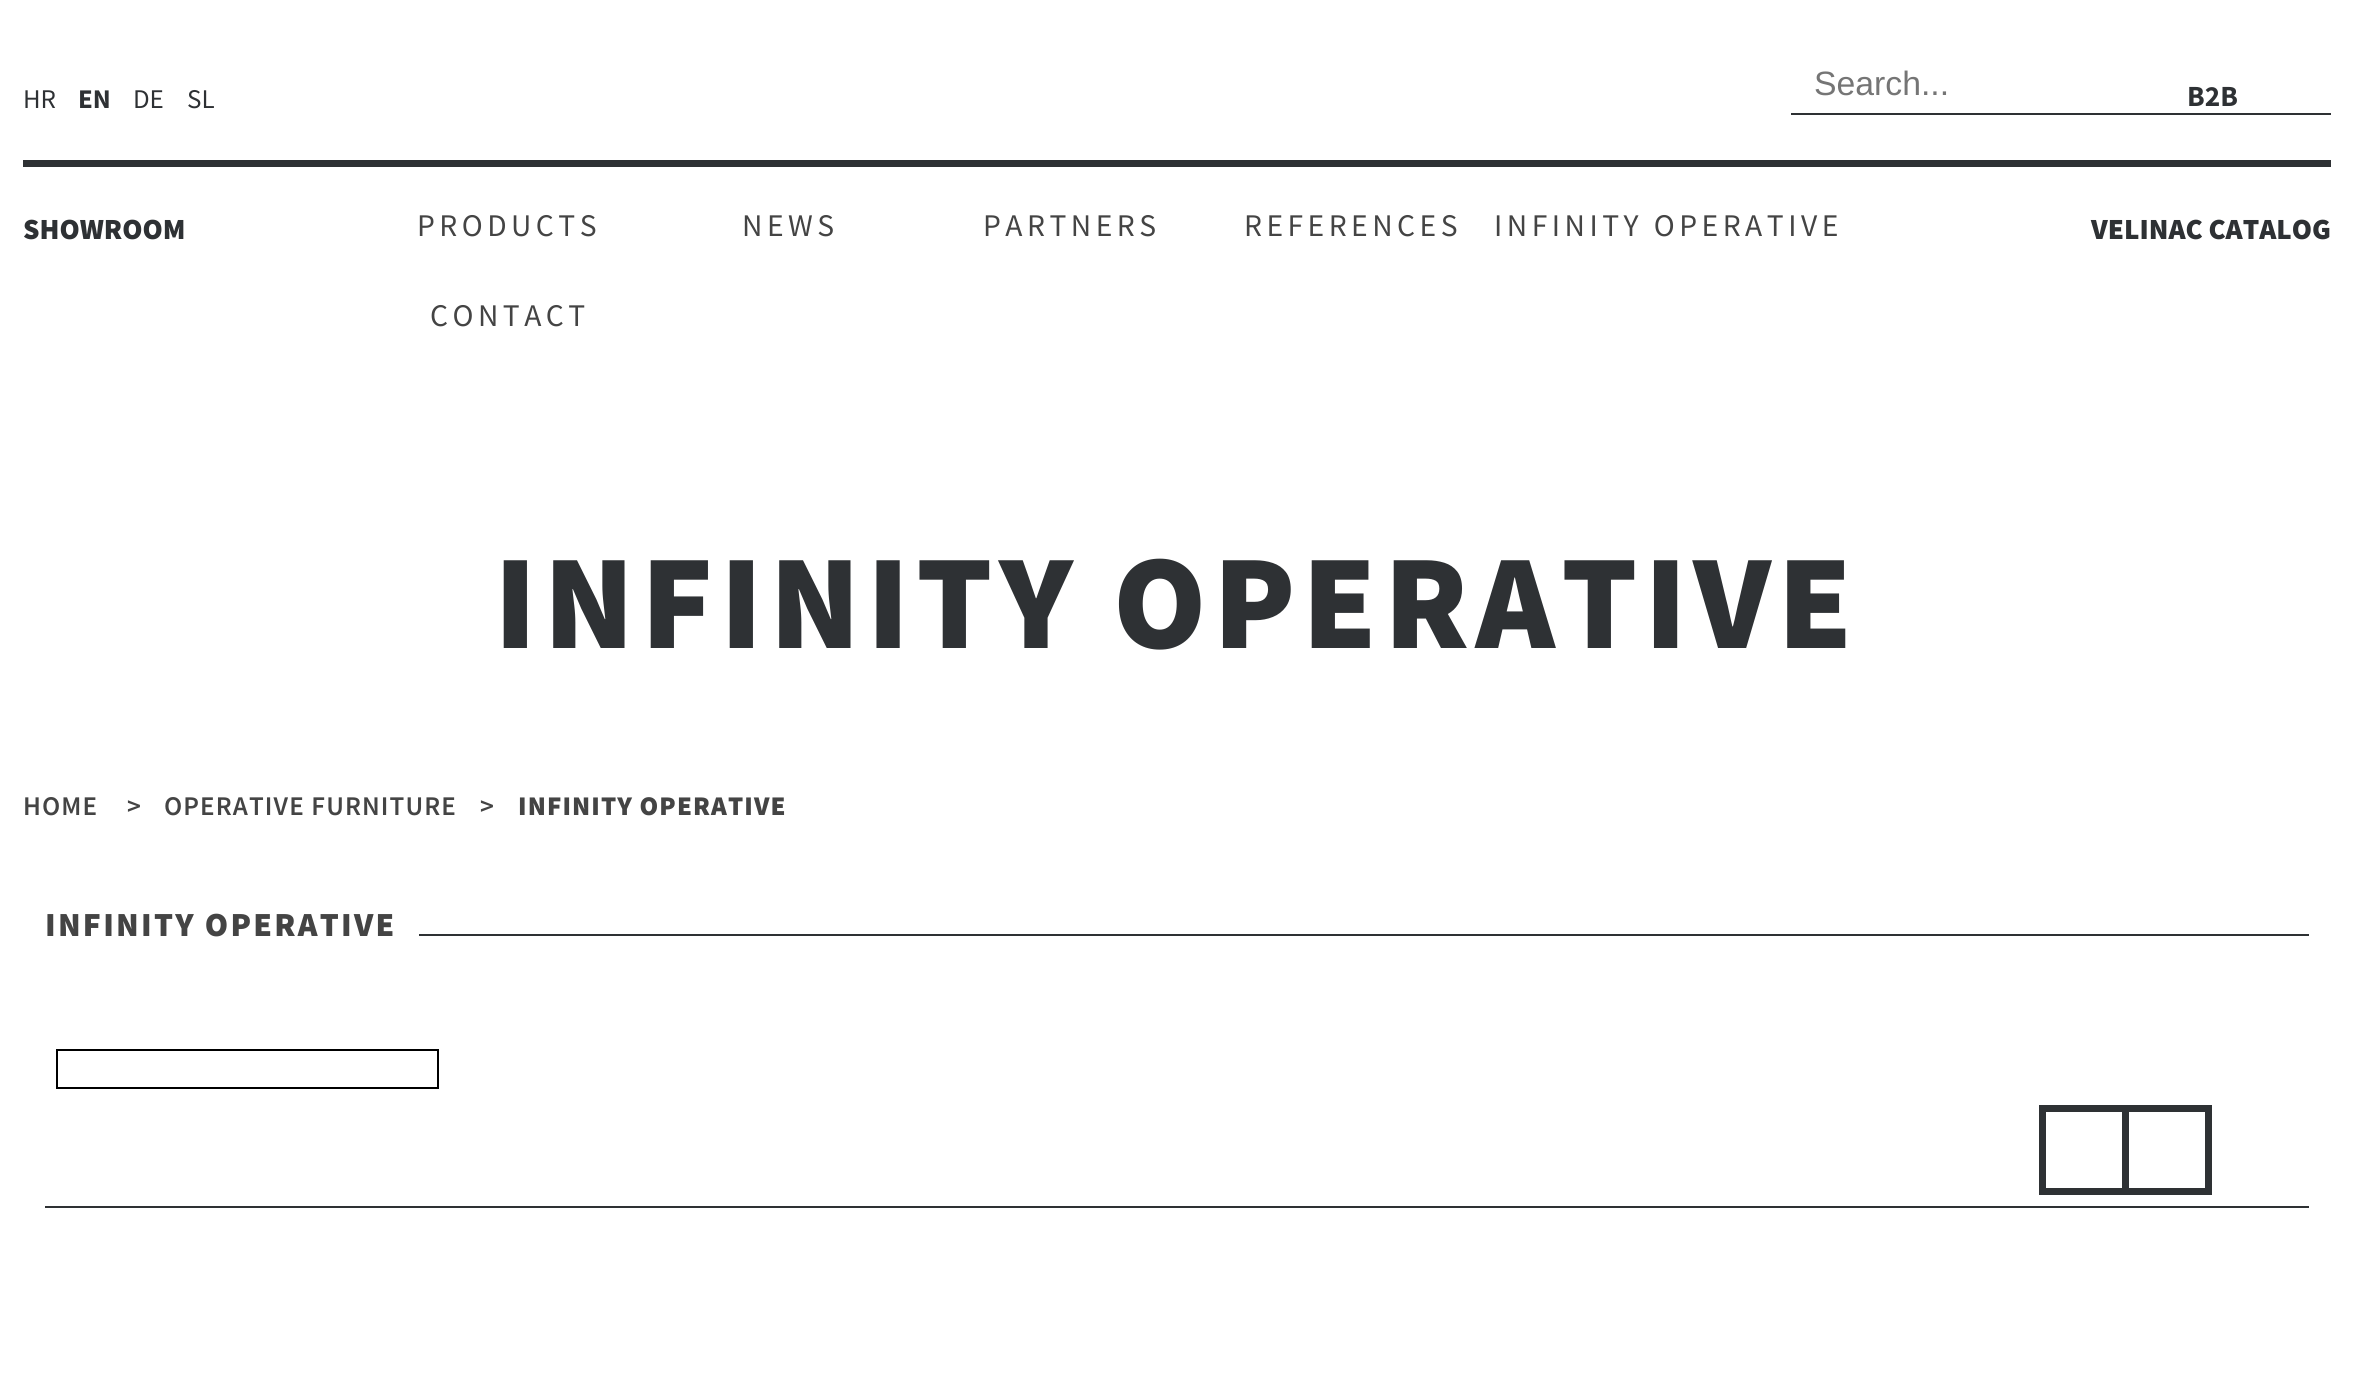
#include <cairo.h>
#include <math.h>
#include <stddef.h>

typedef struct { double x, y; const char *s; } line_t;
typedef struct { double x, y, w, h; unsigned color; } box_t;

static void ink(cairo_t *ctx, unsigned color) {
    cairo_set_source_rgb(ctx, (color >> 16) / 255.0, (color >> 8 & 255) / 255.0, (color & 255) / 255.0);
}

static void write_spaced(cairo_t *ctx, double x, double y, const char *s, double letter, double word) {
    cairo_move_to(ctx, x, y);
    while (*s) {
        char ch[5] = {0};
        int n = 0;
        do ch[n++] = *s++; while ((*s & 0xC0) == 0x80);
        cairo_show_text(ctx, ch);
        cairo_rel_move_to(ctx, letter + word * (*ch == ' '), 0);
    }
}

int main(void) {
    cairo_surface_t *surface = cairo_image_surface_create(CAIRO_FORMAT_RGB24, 2353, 1400);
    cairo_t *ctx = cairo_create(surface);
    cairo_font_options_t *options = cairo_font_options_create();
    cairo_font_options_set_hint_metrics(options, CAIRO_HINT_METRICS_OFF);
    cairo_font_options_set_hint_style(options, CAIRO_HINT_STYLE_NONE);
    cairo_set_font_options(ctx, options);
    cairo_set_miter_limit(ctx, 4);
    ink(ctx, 0xFFFFFF);
    cairo_paint(ctx);
    ink(ctx, 0x2E3134);
    cairo_rectangle(ctx, 23, 160, 2308, 7);
    cairo_fill(ctx);
    cairo_select_font_face(ctx, "Source Sans Pro", CAIRO_FONT_SLANT_NORMAL, CAIRO_FONT_WEIGHT_NORMAL);
    cairo_set_font_size(ctx, 27);
    cairo_move_to(ctx, 23, 108);
    cairo_show_text(ctx, "HR");
    cairo_select_font_face(ctx, "Source Sans Pro", CAIRO_FONT_SLANT_NORMAL, CAIRO_FONT_WEIGHT_BOLD);
    cairo_move_to(ctx, 78, 108);
    cairo_show_text(ctx, "EN");
    cairo_select_font_face(ctx, "Source Sans Pro", CAIRO_FONT_SLANT_NORMAL, CAIRO_FONT_WEIGHT_NORMAL);
    cairo_move_to(ctx, 133, 108);
    cairo_show_text(ctx, "DE");
    cairo_move_to(ctx, 187, 108);
    cairo_show_text(ctx, "SL");
    cairo_rectangle(ctx, 1791, 113, 540, 2);
    cairo_fill(ctx);
    cairo_select_font_face(ctx, "Liberation Sans", CAIRO_FONT_SLANT_NORMAL, CAIRO_FONT_WEIGHT_NORMAL);
    cairo_set_font_size(ctx, 33.75);
    ink(ctx, 0x757575);
    cairo_move_to(ctx, 1814, 95);
    cairo_show_text(ctx, "Search...");
    cairo_select_font_face(ctx, "Source Sans Pro", CAIRO_FONT_SLANT_NORMAL, CAIRO_FONT_WEIGHT_BOLD);
    cairo_set_font_size(ctx, 29.25);
    ink(ctx, 0x2E3134);
    cairo_move_to(ctx, 2187, 106);
    cairo_show_text(ctx, "B2B");
    cairo_select_font_face(ctx, "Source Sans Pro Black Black", CAIRO_FONT_SLANT_NORMAL, CAIRO_FONT_WEIGHT_NORMAL);
    cairo_move_to(ctx, 23, 239);
    cairo_show_text(ctx, "SHOWROOM");
    cairo_select_font_face(ctx, "Source Sans Pro", CAIRO_FONT_SLANT_NORMAL, CAIRO_FONT_WEIGHT_NORMAL);
    cairo_set_font_size(ctx, 31.5);
    ink(ctx, 0x444444);
    {
        static const line_t items[] = {
            {417, 236, "PRODUCTS"},
            {742, 236, "NEWS"},
            {983, 236, "PARTNERS"},
            {1244, 236, "REFERENCES"},
            {1494, 236, "INFINITY OPERATIVE"},
            {430, 326, "CONTACT"},
        };
        for (size_t i = 0; i < sizeof items / sizeof *items; i++) {
            write_spaced(ctx, items[i].x, items[i].y, items[i].s, 4.5, 0);
        }
    }
    cairo_select_font_face(ctx, "Source Sans Pro Black Black", CAIRO_FONT_SLANT_NORMAL, CAIRO_FONT_WEIGHT_NORMAL);
    cairo_set_font_size(ctx, 29.25);
    ink(ctx, 0x2E3134);
    cairo_move_to(ctx, 2091, 239);
    cairo_show_text(ctx, "VELINAC CATALOG");
    cairo_set_font_size(ctx, 135);
    write_spaced(ctx, 494, 648, "INFINITY OPERATIVE", 6.75, 0);
    cairo_select_font_face(ctx, "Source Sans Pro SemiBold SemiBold", CAIRO_FONT_SLANT_NORMAL, CAIRO_FONT_WEIGHT_NORMAL);
    cairo_set_font_size(ctx, 27);
    ink(ctx, 0x444444);
    {
        static const line_t items[] = {
            {23, 815, "HOME"},
            {127, 815, ">"},
            {164, 815, "OPERATIVE FURNITURE"},
            {480, 815, ">"},
        };
        for (size_t i = 0; i < sizeof items / sizeof *items; i++) {
            write_spaced(ctx, items[i].x, items[i].y, items[i].s, 1.1, 0);
        }
    }
    cairo_select_font_face(ctx, "Source Sans Pro Black Black", CAIRO_FONT_SLANT_NORMAL, CAIRO_FONT_WEIGHT_NORMAL);
    write_spaced(ctx, 518, 815, "INFINITY OPERATIVE", 1.1, 0);
    ink(ctx, 0x2E3134);
    cairo_rectangle(ctx, 419, 934, 1890, 2);
    cairo_fill(ctx);
    cairo_set_font_size(ctx, 33.75);
    ink(ctx, 0x444444);
    write_spaced(ctx, 45, 936, "INFINITY OPERATIVE", 2.25, 0);
    ink(ctx, 0x2E3134);
    cairo_rectangle(ctx, 45, 1206, 2264, 2);
    cairo_fill(ctx);
    cairo_rectangle(ctx, 57, 1050, 381, 38);
    ink(ctx, 0x000000);
    cairo_stroke(ctx);
    {
        static const box_t items[] = {
            {2039, 1105, 90, 7, 0x2E3134},
            {2039, 1188, 90, 7, 0x2E3134},
            {2039, 1105, 7, 90, 0x2E3134},
        };
        for (size_t i = 0; i < sizeof items / sizeof *items; i++) {
            ink(ctx, items[i].color);
            cairo_rectangle(ctx, items[i].x, items[i].y, items[i].w, items[i].h);
            cairo_fill(ctx);
        }
    }
    cairo_rectangle(ctx, 2125.5, 1108.5, 83, 83);
    cairo_set_line_width(ctx, 7);
    cairo_stroke(ctx);
    cairo_surface_write_to_png(surface, "image.png");
    cairo_font_options_destroy(options);
    cairo_destroy(ctx);
    cairo_surface_destroy(surface);
    return 0;
}
